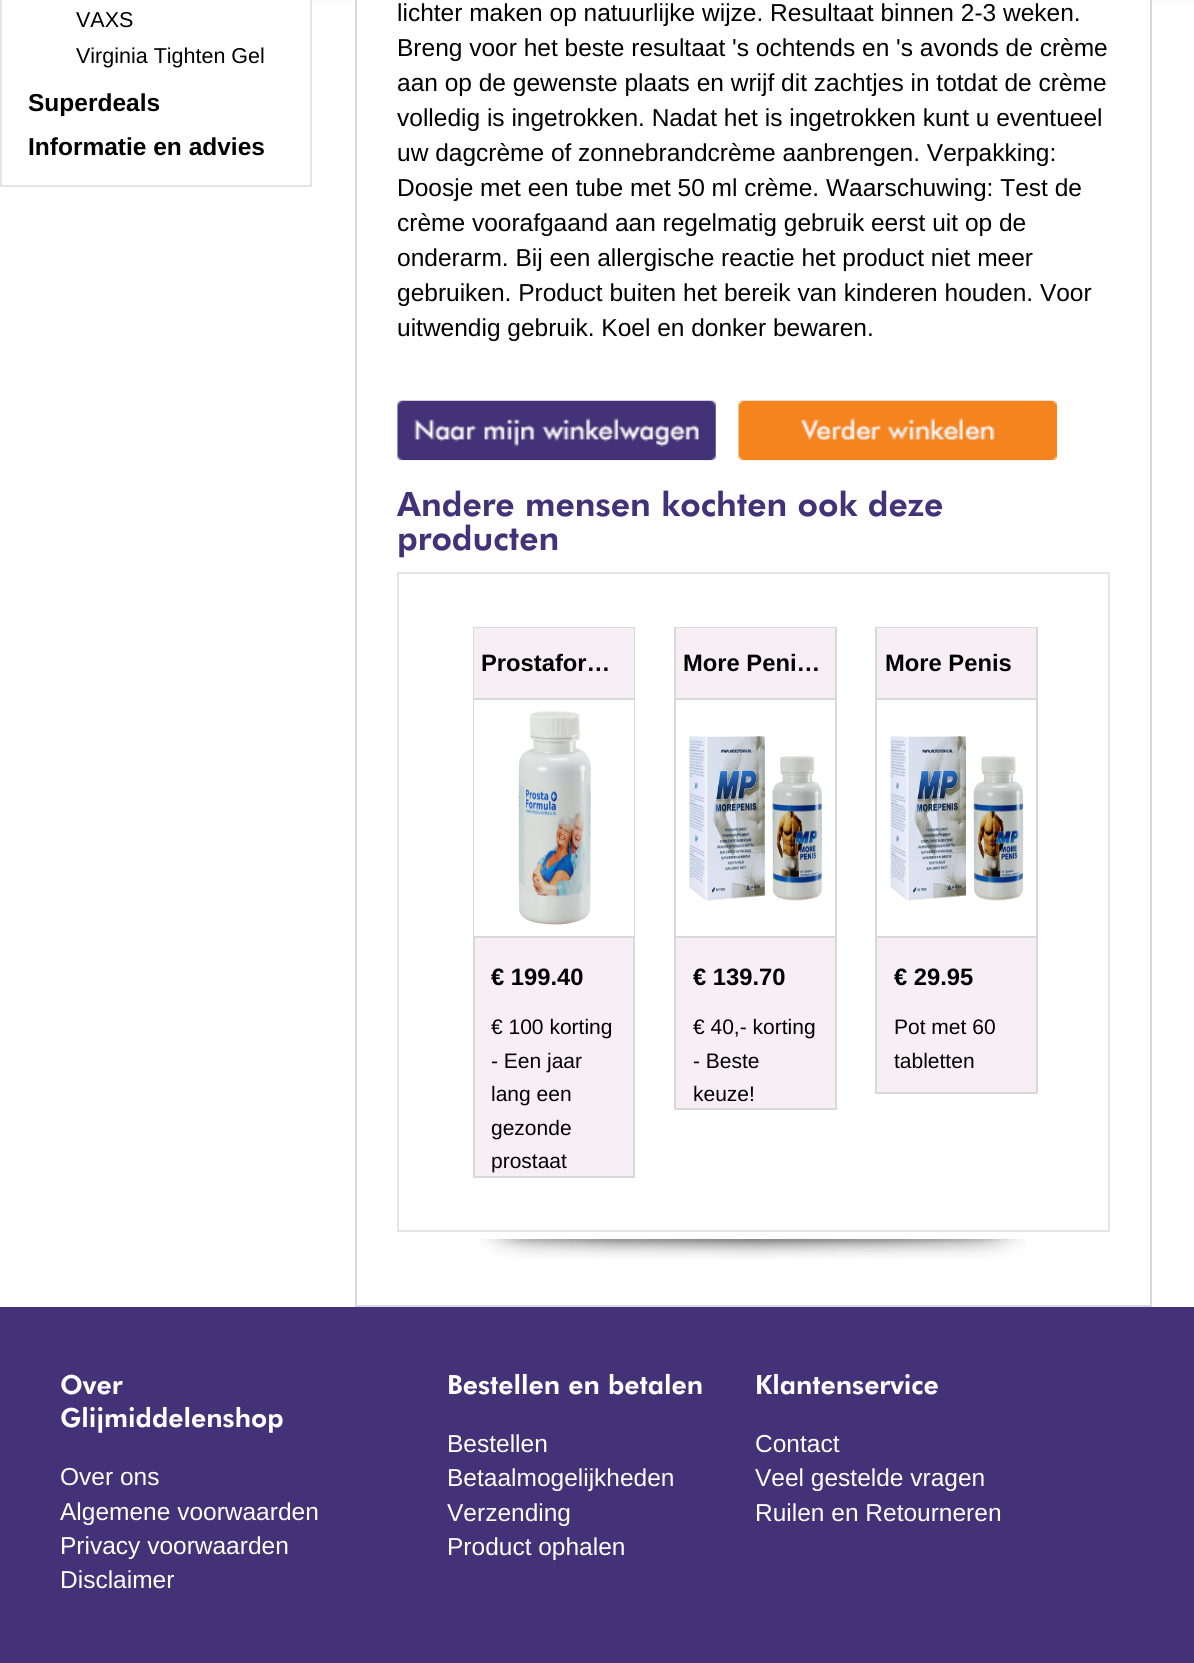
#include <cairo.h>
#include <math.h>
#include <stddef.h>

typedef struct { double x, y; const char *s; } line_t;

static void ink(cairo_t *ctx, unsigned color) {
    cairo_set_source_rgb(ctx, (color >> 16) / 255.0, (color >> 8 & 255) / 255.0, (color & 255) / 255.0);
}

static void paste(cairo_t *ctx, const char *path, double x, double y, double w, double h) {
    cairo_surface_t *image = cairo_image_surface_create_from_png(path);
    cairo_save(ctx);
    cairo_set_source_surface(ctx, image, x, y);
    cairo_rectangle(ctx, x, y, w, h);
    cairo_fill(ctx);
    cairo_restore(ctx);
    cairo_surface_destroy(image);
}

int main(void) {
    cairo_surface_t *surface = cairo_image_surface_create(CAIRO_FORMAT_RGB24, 1194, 1663);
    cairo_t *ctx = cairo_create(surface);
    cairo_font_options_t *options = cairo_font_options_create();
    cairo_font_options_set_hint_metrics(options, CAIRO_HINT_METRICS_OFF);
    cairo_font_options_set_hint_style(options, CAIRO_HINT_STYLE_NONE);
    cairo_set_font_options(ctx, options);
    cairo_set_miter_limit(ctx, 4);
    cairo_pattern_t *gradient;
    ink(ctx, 0xFFFFFF);
    cairo_paint(ctx);
    gradient = cairo_pattern_create_linear(598, -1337, 598, 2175);
    cairo_pattern_add_color_stop_rgba(gradient, 0, 0.8, 0.78, 0.961, 1);
    cairo_pattern_add_color_stop_rgba(gradient, 0.4, 1, 1, 1, 1);
    cairo_set_source(ctx, gradient);
    cairo_pattern_destroy(gradient);
    cairo_rectangle(ctx, 0, 0, 1194, 5);
    cairo_fill(ctx);
    ink(ctx, 0xFFFFFF);
    cairo_rectangle(ctx, 2, 0, 308, 5);
    cairo_fill(ctx);
    cairo_rectangle(ctx, 1, -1, 310, 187);
    ink(ctx, 0xE4E5E5);
    cairo_stroke(ctx);
    cairo_select_font_face(ctx, "Liberation Sans", CAIRO_FONT_SLANT_NORMAL, CAIRO_FONT_WEIGHT_NORMAL);
    cairo_set_font_size(ctx, 21.5);
    ink(ctx, 0x000000);
    cairo_move_to(ctx, 76, 27);
    cairo_show_text(ctx, "VAXS");
    cairo_move_to(ctx, 76, 63);
    cairo_show_text(ctx, "Virginia Tighten Gel");
    cairo_select_font_face(ctx, "Liberation Sans", CAIRO_FONT_SLANT_NORMAL, CAIRO_FONT_WEIGHT_BOLD);
    cairo_set_font_size(ctx, 24.5);
    cairo_move_to(ctx, 28, 111);
    cairo_show_text(ctx, "Superdeals");
    cairo_move_to(ctx, 28, 155);
    cairo_show_text(ctx, "Informatie en advies");
    ink(ctx, 0xFFFFFF);
    cairo_rectangle(ctx, 357, 0, 793, 5);
    cairo_fill(ctx);
    cairo_rectangle(ctx, 356, -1, 795, 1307);
    ink(ctx, 0xD9D9D9);
    cairo_stroke(ctx);
    cairo_select_font_face(ctx, "Liberation Sans", CAIRO_FONT_SLANT_NORMAL, CAIRO_FONT_WEIGHT_NORMAL);
    ink(ctx, 0x000000);
    {
        static const line_t items[] = {
            {397, 21, "lichter maken op natuurlijke wijze. Resultaat binnen 2-3 weken."},
            {397, 56, "Breng voor het beste resultaat 's ochtends en 's avonds de crème"},
            {397, 91, "aan op de gewenste plaats en wrijf dit zachtjes in totdat de crème"},
            {397, 126, "volledig is ingetrokken. Nadat het is ingetrokken kunt u eventueel"},
            {397, 161, "uw dagcrème of zonnebrandcrème aanbrengen. Verpakking:"},
            {397, 196, "Doosje met een tube met 50 ml crème. Waarschuwing: Test de"},
            {397, 231, "crème voorafgaand aan regelmatig gebruik eerst uit op de"},
            {397, 266, "onderarm. Bij een allergische reactie het product niet meer"},
            {397, 301, "gebruiken. Product buiten het bereik van kinderen houden. Voor"},
            {397, 336, "uitwendig gebruik. Koel en donker bewaren."},
        };
        for (size_t i = 0; i < sizeof items / sizeof *items; i++) {
            cairo_move_to(ctx, items[i].x, items[i].y);
            cairo_show_text(ctx, items[i].s);
        }
    }
    paste(ctx, "media/1.png", 397, 400, 319, 61);
    paste(ctx, "media/2.png", 738, 400, 319, 61);
    cairo_select_font_face(ctx, "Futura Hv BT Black", CAIRO_FONT_SLANT_NORMAL, CAIRO_FONT_WEIGHT_NORMAL);
    cairo_set_font_size(ctx, 33.6);
    ink(ctx, 0x433278);
    cairo_move_to(ctx, 397, 516);
    cairo_show_text(ctx, "Andere mensen kochten ook deze");
    cairo_move_to(ctx, 397, 550);
    cairo_show_text(ctx, "producten");
    cairo_rectangle(ctx, 398, 573, 711, 658);
    ink(ctx, 0xE4E5E5);
    cairo_stroke(ctx);
    ink(ctx, 0xF7EFF5);
    cairo_rectangle(ctx, 475, 938, 158, 238);
    cairo_fill(ctx);
    cairo_rectangle(ctx, 474, 628, 160, 549);
    ink(ctx, 0xD9D9D9);
    cairo_stroke(ctx);
    ink(ctx, 0xF7EFF5);
    cairo_rectangle(ctx, 474, 628, 160, 70);
    cairo_fill(ctx);
    ink(ctx, 0xD9D9D9);
    cairo_rectangle(ctx, 474, 698, 160, 2);
    cairo_fill(ctx);
    cairo_select_font_face(ctx, "Liberation Sans", CAIRO_FONT_SLANT_NORMAL, CAIRO_FONT_WEIGHT_BOLD);
    cairo_set_font_size(ctx, 23.75);
    ink(ctx, 0x000000);
    cairo_move_to(ctx, 481, 671);
    cairo_show_text(ctx, "Prostafor…");
    ink(ctx, 0xFFFFFF);
    cairo_rectangle(ctx, 474, 700, 160, 236);
    cairo_fill(ctx);
    paste(ctx, "media/3.png", 518, 711, 73, 214);
    ink(ctx, 0xD9D9D9);
    cairo_rectangle(ctx, 474, 936, 160, 2);
    cairo_fill(ctx);
    ink(ctx, 0x000000);
    cairo_move_to(ctx, 491, 985);
    cairo_show_text(ctx, "€ 199.40");
    cairo_select_font_face(ctx, "Liberation Sans", CAIRO_FONT_SLANT_NORMAL, CAIRO_FONT_WEIGHT_NORMAL);
    cairo_set_font_size(ctx, 21);
    {
        static const line_t items[] = {
            {491, 1034, "€ 100 korting"},
            {491, 1068, "- Een jaar"},
            {491, 1101, "lang een"},
            {491, 1135, "gezonde"},
            {491, 1168, "prostaat"},
        };
        for (size_t i = 0; i < sizeof items / sizeof *items; i++) {
            cairo_move_to(ctx, items[i].x, items[i].y);
            cairo_show_text(ctx, items[i].s);
        }
    }
    ink(ctx, 0xF7EFF5);
    cairo_rectangle(ctx, 676, 938, 159, 170);
    cairo_fill(ctx);
    cairo_rectangle(ctx, 675, 628, 161, 481);
    ink(ctx, 0xD9D9D9);
    cairo_stroke(ctx);
    ink(ctx, 0xF7EFF5);
    cairo_rectangle(ctx, 676, 628, 159, 70);
    cairo_fill(ctx);
    ink(ctx, 0xD9D9D9);
    cairo_rectangle(ctx, 676, 698, 159, 2);
    cairo_fill(ctx);
    cairo_select_font_face(ctx, "Liberation Sans", CAIRO_FONT_SLANT_NORMAL, CAIRO_FONT_WEIGHT_BOLD);
    cairo_set_font_size(ctx, 23.75);
    ink(ctx, 0x000000);
    cairo_move_to(ctx, 683, 671);
    cairo_show_text(ctx, "More Peni…");
    paste(ctx, "media/4.png", 689, 735, 133, 166);
    ink(ctx, 0xD9D9D9);
    cairo_rectangle(ctx, 676, 936, 159, 2);
    cairo_fill(ctx);
    ink(ctx, 0x000000);
    cairo_move_to(ctx, 693, 985);
    cairo_show_text(ctx, "€ 139.70");
    cairo_select_font_face(ctx, "Liberation Sans", CAIRO_FONT_SLANT_NORMAL, CAIRO_FONT_WEIGHT_NORMAL);
    cairo_set_font_size(ctx, 21);
    {
        static const line_t items[] = {
            {693, 1034, "€ 40,- korting"},
            {693, 1068, "- Beste"},
            {693, 1101, "keuze!"},
        };
        for (size_t i = 0; i < sizeof items / sizeof *items; i++) {
            cairo_move_to(ctx, items[i].x, items[i].y);
            cairo_show_text(ctx, items[i].s);
        }
    }
    ink(ctx, 0xF7EFF5);
    cairo_rectangle(ctx, 877, 938, 159, 154);
    cairo_fill(ctx);
    cairo_rectangle(ctx, 876, 628, 161, 465);
    ink(ctx, 0xD9D9D9);
    cairo_stroke(ctx);
    ink(ctx, 0xF7EFF5);
    cairo_rectangle(ctx, 877, 628, 159, 70);
    cairo_fill(ctx);
    ink(ctx, 0xD9D9D9);
    cairo_rectangle(ctx, 877, 698, 159, 2);
    cairo_fill(ctx);
    cairo_select_font_face(ctx, "Liberation Sans", CAIRO_FONT_SLANT_NORMAL, CAIRO_FONT_WEIGHT_BOLD);
    cairo_set_font_size(ctx, 23.75);
    ink(ctx, 0x000000);
    cairo_move_to(ctx, 885, 671);
    cairo_show_text(ctx, "More Penis");
    paste(ctx, "media/5.png", 890, 735, 134, 166);
    ink(ctx, 0xD9D9D9);
    cairo_rectangle(ctx, 877, 936, 159, 2);
    cairo_fill(ctx);
    ink(ctx, 0x000000);
    cairo_move_to(ctx, 894, 985);
    cairo_show_text(ctx, "€ 29.95");
    cairo_select_font_face(ctx, "Liberation Sans", CAIRO_FONT_SLANT_NORMAL, CAIRO_FONT_WEIGHT_NORMAL);
    cairo_set_font_size(ctx, 21);
    cairo_move_to(ctx, 894, 1034);
    cairo_show_text(ctx, "Pot met 60");
    cairo_move_to(ctx, 894, 1068);
    cairo_show_text(ctx, "tabletten");
    paste(ctx, "media/6.png", 480, 1239, 546, 20);
    ink(ctx, 0x433278);
    cairo_rectangle(ctx, 0, 1307, 1194, 356);
    cairo_fill(ctx);
    cairo_select_font_face(ctx, "Futura Hv BT Black", CAIRO_FONT_SLANT_NORMAL, CAIRO_FONT_WEIGHT_NORMAL);
    cairo_set_font_size(ctx, 26.5);
    ink(ctx, 0xFFFFFF);
    cairo_move_to(ctx, 60, 1394);
    cairo_show_text(ctx, "Over");
    cairo_move_to(ctx, 60, 1427);
    cairo_show_text(ctx, "Glijmiddelenshop");
    cairo_select_font_face(ctx, "Liberation Sans", CAIRO_FONT_SLANT_NORMAL, CAIRO_FONT_WEIGHT_NORMAL);
    cairo_set_font_size(ctx, 24.5);
    {
        static const line_t items[] = {
            {60, 1485, "Over ons"},
            {60, 1520, "Algemene voorwaarden"},
            {60, 1554, "Privacy voorwaarden"},
            {60, 1588, "Disclaimer"},
        };
        for (size_t i = 0; i < sizeof items / sizeof *items; i++) {
            cairo_move_to(ctx, items[i].x, items[i].y);
            cairo_show_text(ctx, items[i].s);
        }
    }
    cairo_select_font_face(ctx, "Futura Hv BT Black", CAIRO_FONT_SLANT_NORMAL, CAIRO_FONT_WEIGHT_NORMAL);
    cairo_set_font_size(ctx, 26.5);
    cairo_move_to(ctx, 447, 1394);
    cairo_show_text(ctx, "Bestellen en betalen");
    cairo_select_font_face(ctx, "Liberation Sans", CAIRO_FONT_SLANT_NORMAL, CAIRO_FONT_WEIGHT_NORMAL);
    cairo_set_font_size(ctx, 24.5);
    {
        static const line_t items[] = {
            {447, 1452, "Bestellen"},
            {447, 1486, "Betaalmogelijkheden"},
            {447, 1521, "Verzending"},
            {447, 1555, "Product ophalen"},
        };
        for (size_t i = 0; i < sizeof items / sizeof *items; i++) {
            cairo_move_to(ctx, items[i].x, items[i].y);
            cairo_show_text(ctx, items[i].s);
        }
    }
    cairo_select_font_face(ctx, "Futura Hv BT Black", CAIRO_FONT_SLANT_NORMAL, CAIRO_FONT_WEIGHT_NORMAL);
    cairo_set_font_size(ctx, 26.5);
    cairo_move_to(ctx, 755, 1394);
    cairo_show_text(ctx, "Klantenservice");
    cairo_select_font_face(ctx, "Liberation Sans", CAIRO_FONT_SLANT_NORMAL, CAIRO_FONT_WEIGHT_NORMAL);
    cairo_set_font_size(ctx, 24.5);
    {
        static const line_t items[] = {
            {755, 1452, "Contact"},
            {755, 1486, "Veel gestelde vragen"},
            {755, 1521, "Ruilen en Retourneren"},
        };
        for (size_t i = 0; i < sizeof items / sizeof *items; i++) {
            cairo_move_to(ctx, items[i].x, items[i].y);
            cairo_show_text(ctx, items[i].s);
        }
    }
    cairo_surface_write_to_png(surface, "image.png");
    cairo_font_options_destroy(options);
    cairo_destroy(ctx);
    cairo_surface_destroy(surface);
    return 0;
}
